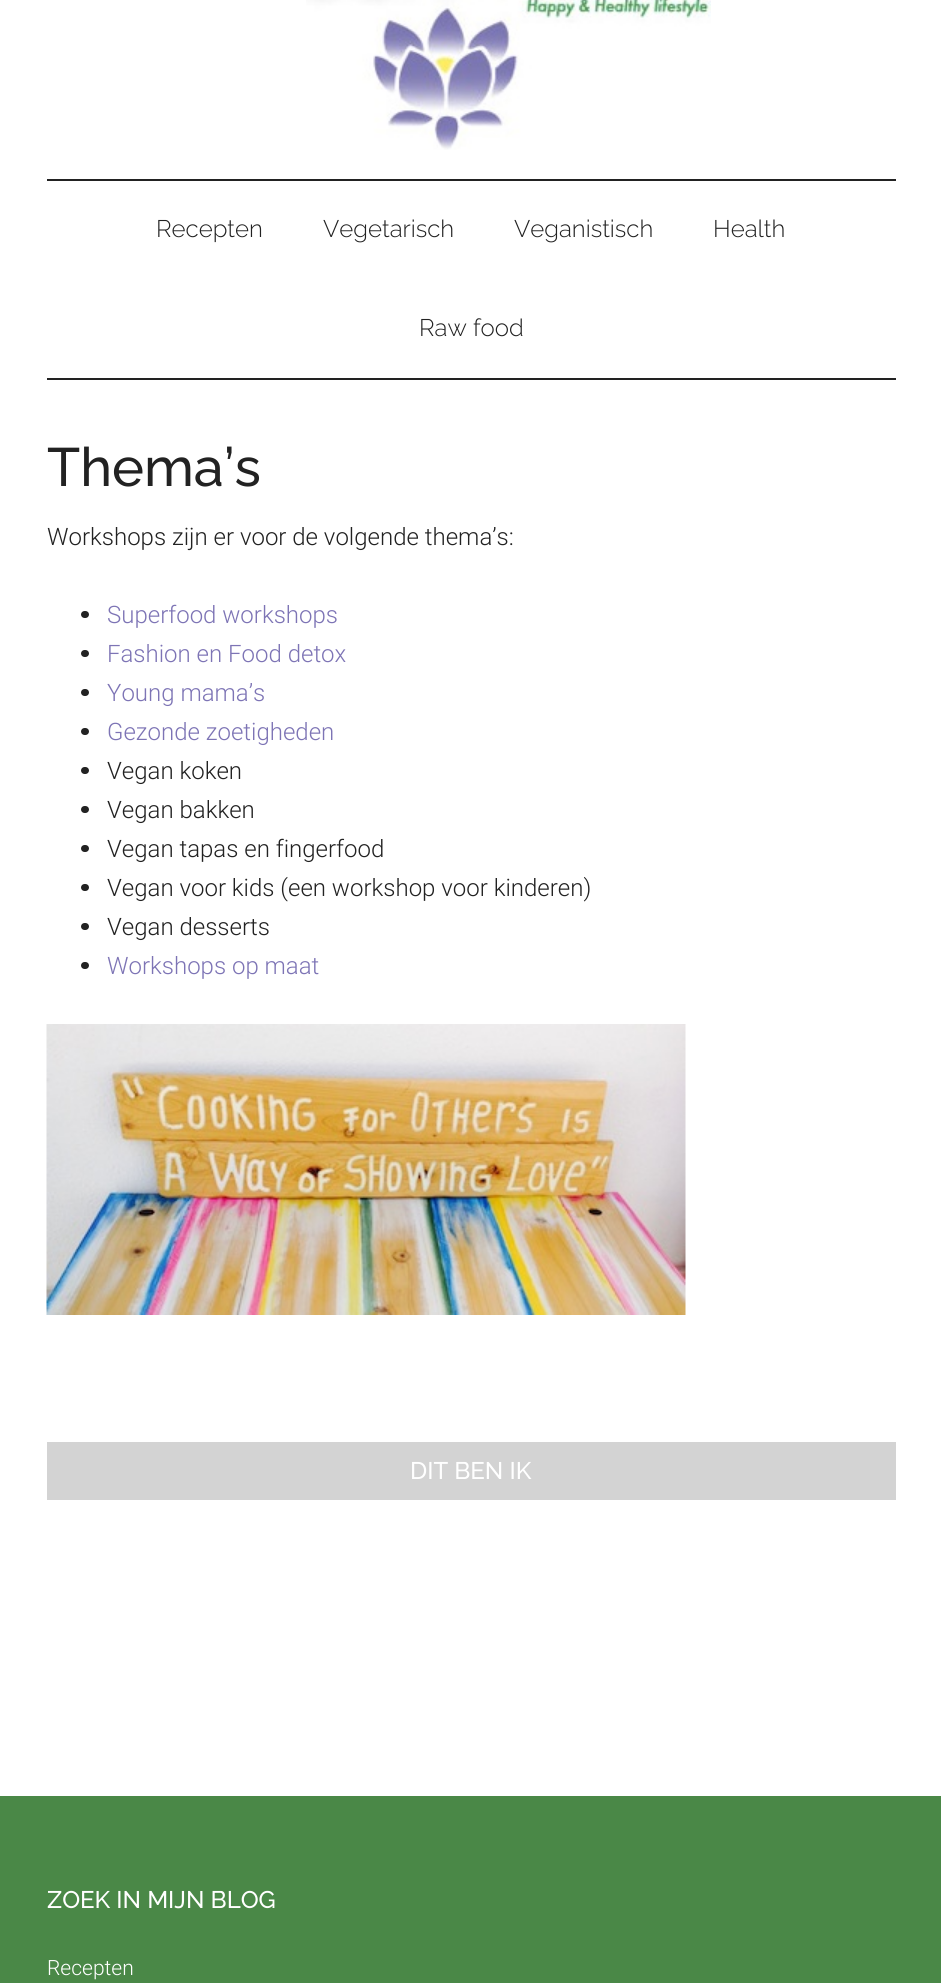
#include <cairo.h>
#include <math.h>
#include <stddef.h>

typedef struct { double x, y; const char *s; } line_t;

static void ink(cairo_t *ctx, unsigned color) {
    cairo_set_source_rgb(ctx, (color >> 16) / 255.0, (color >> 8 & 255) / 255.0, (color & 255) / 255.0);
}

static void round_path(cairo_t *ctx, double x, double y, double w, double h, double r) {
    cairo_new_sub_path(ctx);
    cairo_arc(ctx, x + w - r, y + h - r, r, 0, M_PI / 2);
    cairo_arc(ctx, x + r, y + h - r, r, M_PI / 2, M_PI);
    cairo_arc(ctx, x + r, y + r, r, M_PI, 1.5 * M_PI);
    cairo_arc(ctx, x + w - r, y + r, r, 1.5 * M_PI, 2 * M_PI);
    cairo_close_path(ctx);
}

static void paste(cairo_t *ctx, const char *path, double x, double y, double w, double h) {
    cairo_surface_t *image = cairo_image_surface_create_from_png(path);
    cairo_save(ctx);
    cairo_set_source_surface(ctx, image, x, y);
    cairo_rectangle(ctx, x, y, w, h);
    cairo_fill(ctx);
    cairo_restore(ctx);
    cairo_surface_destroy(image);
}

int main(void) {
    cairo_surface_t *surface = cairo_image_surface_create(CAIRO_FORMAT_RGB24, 941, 1983);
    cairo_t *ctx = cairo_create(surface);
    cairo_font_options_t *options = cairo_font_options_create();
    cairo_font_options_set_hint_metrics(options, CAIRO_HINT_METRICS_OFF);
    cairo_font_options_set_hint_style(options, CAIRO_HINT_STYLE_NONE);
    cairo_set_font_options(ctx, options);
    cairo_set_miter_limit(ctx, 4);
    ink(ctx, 0xFFFFFF);
    cairo_paint(ctx);
    ink(ctx, 0x222222);
    cairo_rectangle(ctx, 47, 179, 849, 2);
    cairo_fill(ctx);
    paste(ctx, "media/1.png", 306, 0, 405, 150);
    cairo_rectangle(ctx, 47, 378, 849, 2);
    cairo_fill(ctx);
    cairo_select_font_face(ctx, "Raleway Light", CAIRO_FONT_SLANT_NORMAL, CAIRO_FONT_WEIGHT_NORMAL);
    cairo_set_font_size(ctx, 24);
    {
        static const line_t items[] = {
            {156, 237, "Recepten"},
            {323, 237, "Vegetarisch"},
            {514, 237, "Veganistisch"},
            {713, 237, "Health"},
            {419, 336, "Raw food"},
        };
        for (size_t i = 0; i < sizeof items / sizeof *items; i++) {
            cairo_move_to(ctx, items[i].x, items[i].y);
            cairo_show_text(ctx, items[i].s);
        }
    }
    cairo_select_font_face(ctx, "Raleway Medium", CAIRO_FONT_SLANT_NORMAL, CAIRO_FONT_WEIGHT_NORMAL);
    cairo_set_font_size(ctx, 54);
    cairo_move_to(ctx, 47, 486);
    cairo_show_text(ctx, "Thema’s");
    cairo_select_font_face(ctx, "Roboto Light", CAIRO_FONT_SLANT_NORMAL, CAIRO_FONT_WEIGHT_NORMAL);
    cairo_set_font_size(ctx, 24);
    cairo_move_to(ctx, 47, 545);
    cairo_show_text(ctx, "Workshops zijn er voor de volgende thema’s:");
    round_path(ctx, 81, 611, 8, 7, 3.5);
    cairo_fill(ctx);
    ink(ctx, 0x7D74B5);
    cairo_move_to(ctx, 107, 623);
    cairo_show_text(ctx, "Superfood workshops");
    ink(ctx, 0x222222);
    round_path(ctx, 81, 650, 8, 7, 3.5);
    cairo_fill(ctx);
    ink(ctx, 0x7D74B5);
    cairo_move_to(ctx, 107, 662);
    cairo_show_text(ctx, "Fashion en Food detox");
    ink(ctx, 0x222222);
    round_path(ctx, 81, 689, 8, 7, 3.5);
    cairo_fill(ctx);
    ink(ctx, 0x7D74B5);
    cairo_move_to(ctx, 107, 701);
    cairo_show_text(ctx, "Young mama’s");
    ink(ctx, 0x222222);
    round_path(ctx, 81, 728, 8, 7, 3.5);
    cairo_fill(ctx);
    ink(ctx, 0x7D74B5);
    cairo_move_to(ctx, 107, 740);
    cairo_show_text(ctx, "Gezonde zoetigheden");
    ink(ctx, 0x222222);
    round_path(ctx, 81, 767, 8, 7, 3.5);
    cairo_fill(ctx);
    cairo_move_to(ctx, 107, 779);
    cairo_show_text(ctx, "Vegan koken");
    round_path(ctx, 81, 806, 8, 7, 3.5);
    cairo_fill(ctx);
    cairo_move_to(ctx, 107, 818);
    cairo_show_text(ctx, "Vegan bakken");
    round_path(ctx, 81, 845, 8, 7, 3.5);
    cairo_fill(ctx);
    cairo_move_to(ctx, 107, 857);
    cairo_show_text(ctx, "Vegan tapas en fingerfood");
    round_path(ctx, 81, 884, 8, 7, 3.5);
    cairo_fill(ctx);
    cairo_move_to(ctx, 107, 896);
    cairo_show_text(ctx, "Vegan voor kids (een workshop voor kinderen)");
    round_path(ctx, 81, 923, 8, 7, 3.5);
    cairo_fill(ctx);
    cairo_move_to(ctx, 107, 935);
    cairo_show_text(ctx, "Vegan desserts");
    round_path(ctx, 81, 962, 8, 7, 3.5);
    cairo_fill(ctx);
    ink(ctx, 0x7D74B5);
    cairo_move_to(ctx, 107, 974);
    cairo_show_text(ctx, "Workshops op maat");
    paste(ctx, "media/2.png", 46, 1024, 640, 291);
    ink(ctx, 0xD3D3D3);
    cairo_rectangle(ctx, 47, 1442, 849, 58);
    cairo_fill(ctx);
    cairo_select_font_face(ctx, "Raleway Medium", CAIRO_FONT_SLANT_NORMAL, CAIRO_FONT_WEIGHT_NORMAL);
    ink(ctx, 0xFFFFFF);
    cairo_move_to(ctx, 410, 1479);
    cairo_show_text(ctx, "DIT BEN IK");
    ink(ctx, 0x4A8847);
    cairo_rectangle(ctx, 0, 1796, 941, 187);
    cairo_fill(ctx);
    ink(ctx, 0xFFFFFF);
    cairo_move_to(ctx, 47, 1908);
    cairo_show_text(ctx, "ZOEK IN MIJN BLOG");
    cairo_select_font_face(ctx, "Roboto Light", CAIRO_FONT_SLANT_NORMAL, CAIRO_FONT_WEIGHT_NORMAL);
    cairo_set_font_size(ctx, 21);
    cairo_move_to(ctx, 47, 1975);
    cairo_show_text(ctx, "Recepten");
    cairo_surface_write_to_png(surface, "image.png");
    cairo_font_options_destroy(options);
    cairo_destroy(ctx);
    cairo_surface_destroy(surface);
    return 0;
}
